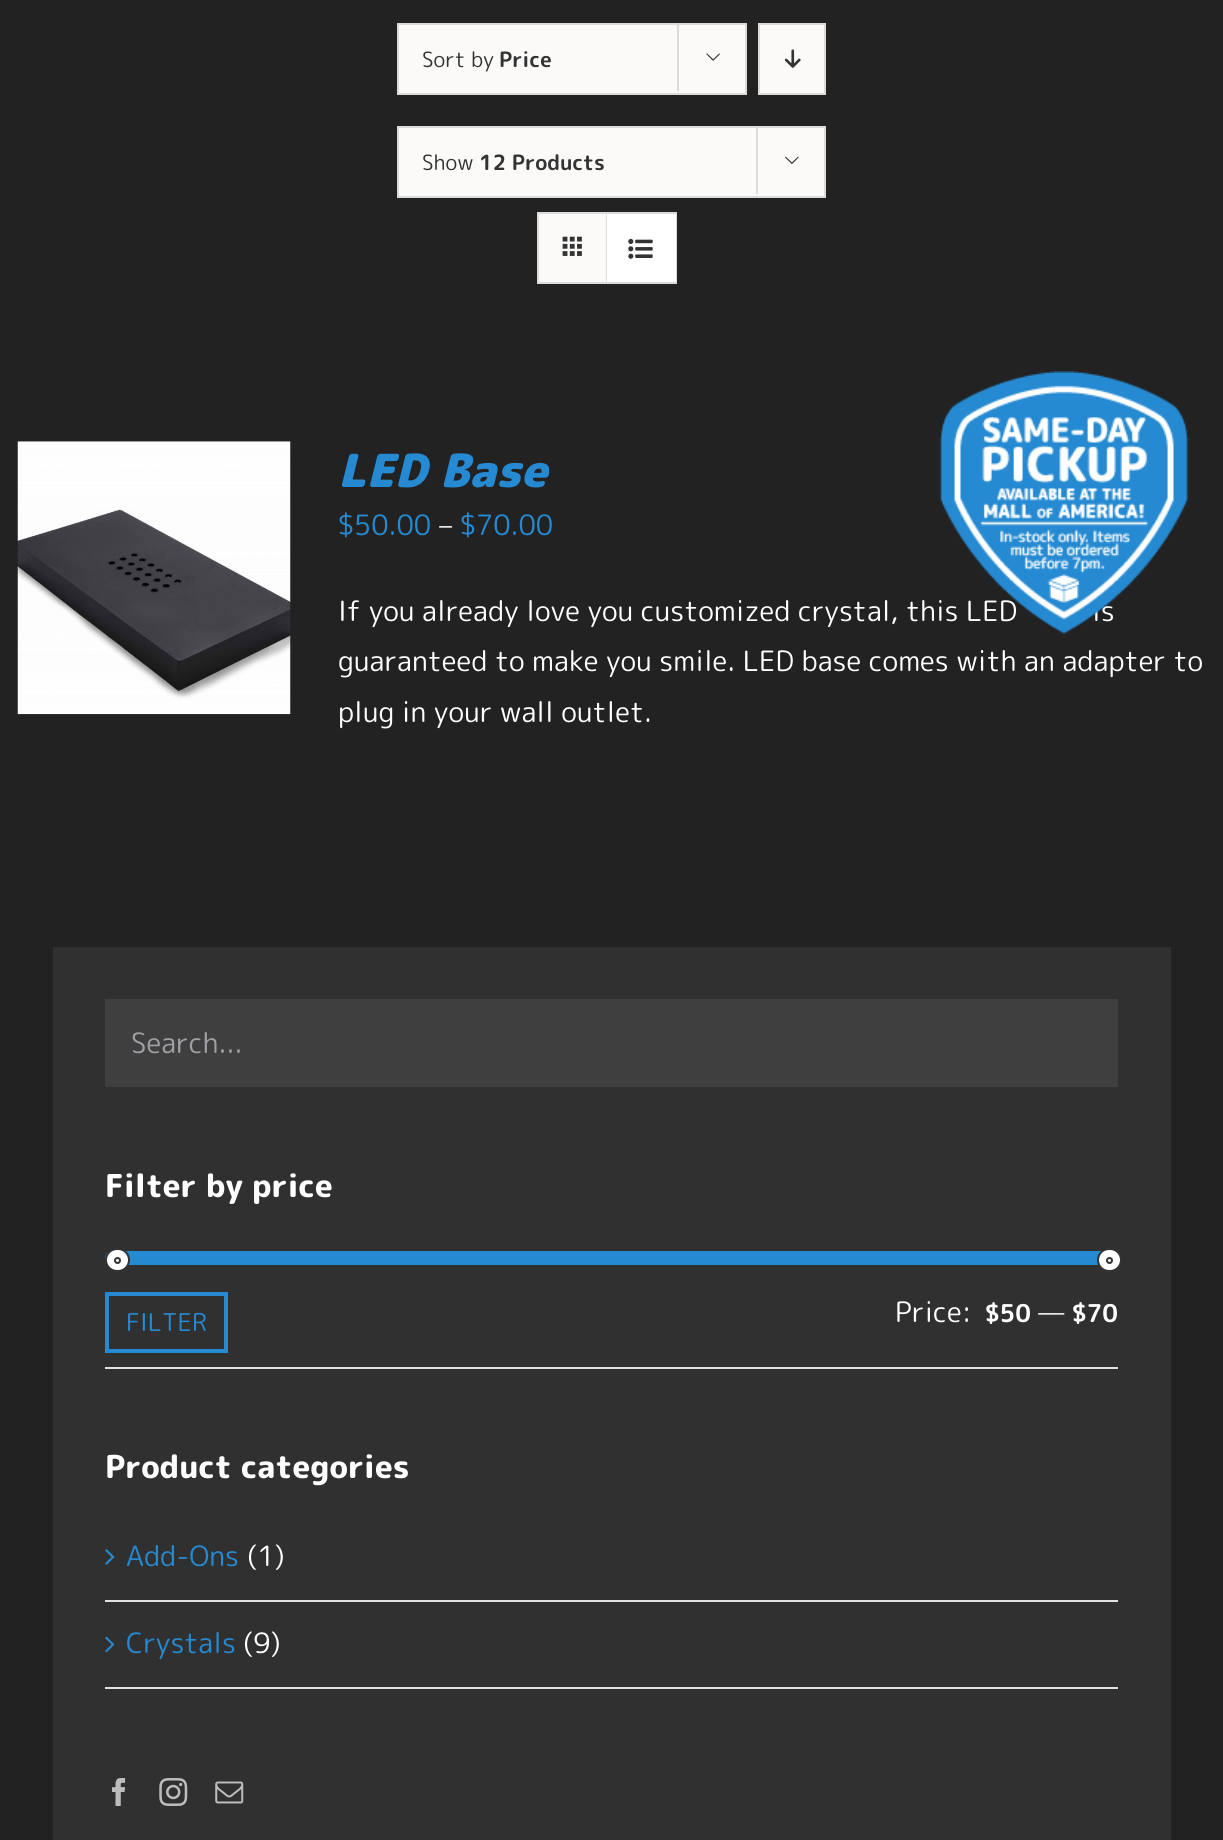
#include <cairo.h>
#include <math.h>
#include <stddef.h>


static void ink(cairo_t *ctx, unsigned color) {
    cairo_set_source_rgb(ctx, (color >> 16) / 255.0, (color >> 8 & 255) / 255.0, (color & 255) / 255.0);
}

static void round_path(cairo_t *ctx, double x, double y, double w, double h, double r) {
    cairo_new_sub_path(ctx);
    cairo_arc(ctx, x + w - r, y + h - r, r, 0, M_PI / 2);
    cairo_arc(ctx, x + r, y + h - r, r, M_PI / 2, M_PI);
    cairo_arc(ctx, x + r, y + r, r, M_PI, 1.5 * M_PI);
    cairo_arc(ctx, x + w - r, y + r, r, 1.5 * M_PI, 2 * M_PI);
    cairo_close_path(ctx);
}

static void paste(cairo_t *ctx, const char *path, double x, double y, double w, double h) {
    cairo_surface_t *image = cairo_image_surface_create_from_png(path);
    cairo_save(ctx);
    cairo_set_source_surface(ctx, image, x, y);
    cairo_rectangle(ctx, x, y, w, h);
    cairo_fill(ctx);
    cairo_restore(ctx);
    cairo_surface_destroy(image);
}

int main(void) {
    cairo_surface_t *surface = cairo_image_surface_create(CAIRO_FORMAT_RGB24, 1223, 1840);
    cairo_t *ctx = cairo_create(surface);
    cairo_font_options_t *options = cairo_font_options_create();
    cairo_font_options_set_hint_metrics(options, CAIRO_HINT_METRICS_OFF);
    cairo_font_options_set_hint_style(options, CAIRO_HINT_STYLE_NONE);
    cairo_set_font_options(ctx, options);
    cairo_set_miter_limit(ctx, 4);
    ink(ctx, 0x222222);
    cairo_paint(ctx);
    ink(ctx, 0xFBFAF9);
    cairo_rectangle(ctx, 398, 24, 348, 70);
    cairo_fill_preserve(ctx);
    ink(ctx, 0xDBDBDB);
    cairo_stroke(ctx);
    cairo_select_font_face(ctx, "Rounded Mplus 1c", CAIRO_FONT_SLANT_NORMAL, CAIRO_FONT_WEIGHT_NORMAL);
    cairo_set_font_size(ctx, 21);
    ink(ctx, 0x333333);
    cairo_move_to(ctx, 422, 67);
    cairo_show_text(ctx, "Sort by");
    cairo_select_font_face(ctx, "Rounded Mplus 1c Bold", CAIRO_FONT_SLANT_NORMAL, CAIRO_FONT_WEIGHT_BOLD);
    cairo_move_to(ctx, 499, 67);
    cairo_show_text(ctx, "Price");
    ink(ctx, 0xDBDBDB);
    cairo_rectangle(ctx, 677, 23, 2, 68);
    cairo_fill(ctx);
    paste(ctx, "media/1.png", 706, 53, 14, 8);
    ink(ctx, 0xFBFAF9);
    cairo_rectangle(ctx, 759, 24, 66, 70);
    cairo_fill_preserve(ctx);
    ink(ctx, 0xDBDBDB);
    cairo_stroke(ctx);
    paste(ctx, "media/2.png", 784, 49, 17, 19);
    ink(ctx, 0xFBFAF9);
    cairo_rectangle(ctx, 398, 127, 427, 70);
    cairo_fill_preserve(ctx);
    ink(ctx, 0xDBDBDB);
    cairo_stroke(ctx);
    cairo_select_font_face(ctx, "Rounded Mplus 1c", CAIRO_FONT_SLANT_NORMAL, CAIRO_FONT_WEIGHT_NORMAL);
    ink(ctx, 0x333333);
    cairo_move_to(ctx, 422, 170);
    cairo_show_text(ctx, "Show");
    cairo_select_font_face(ctx, "Rounded Mplus 1c Bold", CAIRO_FONT_SLANT_NORMAL, CAIRO_FONT_WEIGHT_BOLD);
    cairo_move_to(ctx, 479, 170);
    cairo_show_text(ctx, "12 Products");
    ink(ctx, 0xDBDBDB);
    cairo_rectangle(ctx, 756, 126, 2, 68);
    cairo_fill(ctx);
    paste(ctx, "media/3.png", 785, 156, 14, 8);
    cairo_rectangle(ctx, 538, 213, 138, 70);
    cairo_stroke(ctx);
    ink(ctx, 0xFBFAF9);
    cairo_rectangle(ctx, 539, 214, 67, 68);
    cairo_fill(ctx);
    ink(ctx, 0xDBDBDB);
    cairo_rectangle(ctx, 606, 214, 1, 68);
    cairo_fill(ctx);
    paste(ctx, "media/4.png", 562, 236, 20, 20);
    ink(ctx, 0xFFFFFF);
    cairo_rectangle(ctx, 607, 214, 69, 68);
    cairo_fill(ctx);
    paste(ctx, "media/5.png", 628, 238, 25, 21);
    paste(ctx, "media/6.png", 17, 441, 274, 274);
    cairo_select_font_face(ctx, "Rounded Mplus 1c Black", CAIRO_FONT_SLANT_ITALIC, CAIRO_FONT_WEIGHT_NORMAL);
    cairo_set_font_size(ctx, 45.5);
    ink(ctx, 0x258AD2);
    cairo_move_to(ctx, 338, 487);
    cairo_show_text(ctx, "LED Base");
    cairo_select_font_face(ctx, "Rounded Mplus 1c", CAIRO_FONT_SLANT_NORMAL, CAIRO_FONT_WEIGHT_NORMAL);
    cairo_set_font_size(ctx, 28);
    cairo_move_to(ctx, 338, 535);
    cairo_show_text(ctx, "$50.00");
    ink(ctx, 0xFFFFFF);
    cairo_move_to(ctx, 439, 535);
    cairo_show_text(ctx, "–");
    ink(ctx, 0x258AD2);
    cairo_move_to(ctx, 460, 535);
    cairo_show_text(ctx, "$70.00");
    ink(ctx, 0xFFFFFF);
    cairo_move_to(ctx, 338, 621);
    cairo_show_text(ctx, "If you already love you customized crystal, this LED");
    cairo_move_to(ctx, 1092, 621);
    cairo_show_text(ctx, "is");
    paste(ctx, "media/7.png", 939, 371, 250, 263);
    cairo_move_to(ctx, 338, 671);
    cairo_show_text(ctx, "guaranteed to make you smile. LED base comes with an adapter to");
    cairo_move_to(ctx, 338, 722);
    cairo_show_text(ctx, "plug in your wall outlet.");
    ink(ctx, 0x303030);
    cairo_rectangle(ctx, 53, 947, 1118, 893);
    cairo_fill(ctx);
    ink(ctx, 0x3F3F3F);
    cairo_rectangle(ctx, 105, 999, 1013, 88);
    cairo_fill(ctx);
    ink(ctx, 0x9EA0A4);
    cairo_move_to(ctx, 131, 1053);
    cairo_show_text(ctx, "Search...");
    cairo_select_font_face(ctx, "Rounded Mplus 1c ExtraBold", CAIRO_FONT_SLANT_NORMAL, CAIRO_FONT_WEIGHT_NORMAL);
    cairo_set_font_size(ctx, 31.5);
    ink(ctx, 0xFFFFFF);
    cairo_move_to(ctx, 105, 1197);
    cairo_show_text(ctx, "Filter by price");
    ink(ctx, 0xE2E2E2);
    cairo_rectangle(ctx, 105, 1367, 1013, 2);
    cairo_fill(ctx);
    ink(ctx, 0x258AD2);
    round_path(ctx, 105, 1251, 1013, 14, 7);
    cairo_fill(ctx);
    ink(ctx, 0xFFFFFF);
    round_path(ctx, 106, 1249, 23, 22, 11);
    cairo_fill_preserve(ctx);
    ink(ctx, 0x333333);
    cairo_stroke(ctx);
    cairo_arc(ctx, 117.5, 1260.5, 2.5, 0, 2 * M_PI);
    cairo_stroke(ctx);
    ink(ctx, 0xFFFFFF);
    round_path(ctx, 1098, 1249, 23, 22, 11);
    cairo_fill_preserve(ctx);
    ink(ctx, 0x333333);
    cairo_stroke(ctx);
    cairo_arc(ctx, 1109.5, 1260.5, 2.5, 0, 2 * M_PI);
    cairo_stroke(ctx);
    cairo_rectangle(ctx, 107, 1294, 119, 57);
    ink(ctx, 0x258AD2);
    cairo_set_line_width(ctx, 4);
    cairo_stroke(ctx);
    cairo_select_font_face(ctx, "Rounded Mplus 1c", CAIRO_FONT_SLANT_NORMAL, CAIRO_FONT_WEIGHT_NORMAL);
    cairo_set_font_size(ctx, 24.5);
    cairo_move_to(ctx, 126, 1331);
    cairo_show_text(ctx, "FILTER");
    cairo_set_font_size(ctx, 28);
    ink(ctx, 0xFFFFFF);
    cairo_move_to(ctx, 895, 1322);
    cairo_show_text(ctx, "Price:");
    cairo_select_font_face(ctx, "Rounded Mplus 1c Bold", CAIRO_FONT_SLANT_NORMAL, CAIRO_FONT_WEIGHT_BOLD);
    cairo_set_font_size(ctx, 24.5);
    cairo_move_to(ctx, 985, 1322);
    cairo_show_text(ctx, "$50");
    cairo_select_font_face(ctx, "Rounded Mplus 1c", CAIRO_FONT_SLANT_NORMAL, CAIRO_FONT_WEIGHT_NORMAL);
    cairo_set_font_size(ctx, 28);
    cairo_move_to(ctx, 1038, 1322);
    cairo_show_text(ctx, "—");
    cairo_select_font_face(ctx, "Rounded Mplus 1c Bold", CAIRO_FONT_SLANT_NORMAL, CAIRO_FONT_WEIGHT_BOLD);
    cairo_set_font_size(ctx, 24.5);
    cairo_move_to(ctx, 1072, 1322);
    cairo_show_text(ctx, "$70");
    cairo_select_font_face(ctx, "Rounded Mplus 1c ExtraBold", CAIRO_FONT_SLANT_NORMAL, CAIRO_FONT_WEIGHT_NORMAL);
    cairo_set_font_size(ctx, 31.5);
    cairo_move_to(ctx, 105, 1478);
    cairo_show_text(ctx, "Product categories");
    ink(ctx, 0xE2E2E2);
    cairo_rectangle(ctx, 105, 1600, 1013, 2);
    cairo_fill(ctx);
    paste(ctx, "media/8.png", 105, 1549, 10, 16);
    cairo_select_font_face(ctx, "Rounded Mplus 1c", CAIRO_FONT_SLANT_NORMAL, CAIRO_FONT_WEIGHT_NORMAL);
    cairo_set_font_size(ctx, 28);
    ink(ctx, 0x258AD2);
    cairo_move_to(ctx, 126, 1566);
    cairo_show_text(ctx, "Add-Ons");
    ink(ctx, 0xFFFFFF);
    cairo_move_to(ctx, 247, 1566);
    cairo_show_text(ctx, "(1)");
    ink(ctx, 0xE2E2E2);
    cairo_rectangle(ctx, 105, 1687, 1013, 2);
    cairo_fill(ctx);
    paste(ctx, "media/9.png", 105, 1636, 10, 17);
    ink(ctx, 0x258AD2);
    cairo_move_to(ctx, 126, 1653);
    cairo_show_text(ctx, "Crystals");
    ink(ctx, 0xFFFFFF);
    cairo_move_to(ctx, 243, 1653);
    cairo_show_text(ctx, "(9)");
    paste(ctx, "media/10.png", 112, 1778, 14, 28);
    paste(ctx, "media/11.png", 159, 1778, 29, 28);
    paste(ctx, "media/12.png", 215, 1781, 29, 23);
    cairo_surface_write_to_png(surface, "image.png");
    cairo_font_options_destroy(options);
    cairo_destroy(ctx);
    cairo_surface_destroy(surface);
    return 0;
}
